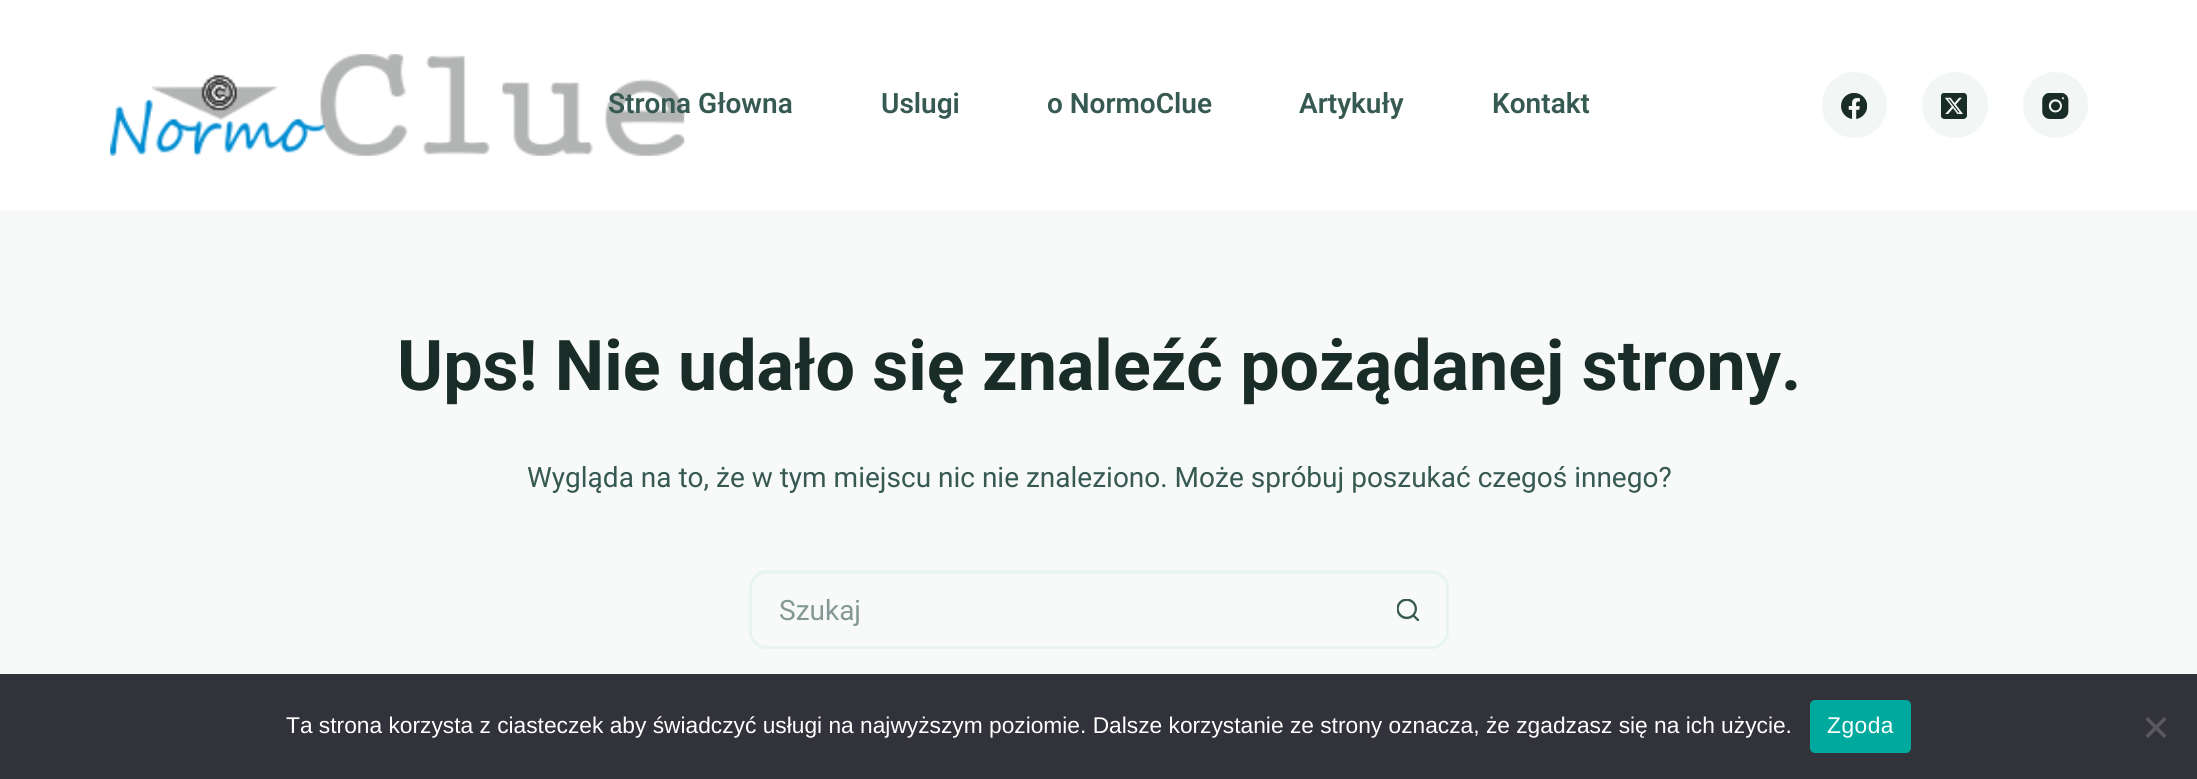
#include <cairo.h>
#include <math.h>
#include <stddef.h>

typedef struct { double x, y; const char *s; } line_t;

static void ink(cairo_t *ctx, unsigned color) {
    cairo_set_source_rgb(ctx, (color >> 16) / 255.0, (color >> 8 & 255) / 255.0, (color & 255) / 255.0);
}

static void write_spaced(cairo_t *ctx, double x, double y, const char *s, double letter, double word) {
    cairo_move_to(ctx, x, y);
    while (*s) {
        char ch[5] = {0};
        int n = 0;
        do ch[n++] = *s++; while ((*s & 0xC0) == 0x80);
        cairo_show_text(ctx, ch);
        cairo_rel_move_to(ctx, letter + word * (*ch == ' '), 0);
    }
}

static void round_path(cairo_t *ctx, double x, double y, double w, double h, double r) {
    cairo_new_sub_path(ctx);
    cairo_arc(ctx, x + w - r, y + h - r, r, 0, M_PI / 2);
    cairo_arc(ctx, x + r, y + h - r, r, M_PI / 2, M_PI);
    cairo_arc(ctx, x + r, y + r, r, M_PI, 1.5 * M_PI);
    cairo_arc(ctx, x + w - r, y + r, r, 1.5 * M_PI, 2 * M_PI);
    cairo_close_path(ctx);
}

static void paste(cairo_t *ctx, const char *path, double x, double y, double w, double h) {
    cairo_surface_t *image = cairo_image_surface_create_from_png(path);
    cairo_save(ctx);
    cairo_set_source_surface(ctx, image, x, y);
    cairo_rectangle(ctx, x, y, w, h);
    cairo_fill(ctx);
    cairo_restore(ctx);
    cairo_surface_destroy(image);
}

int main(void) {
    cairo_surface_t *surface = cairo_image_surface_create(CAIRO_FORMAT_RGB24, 2197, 779);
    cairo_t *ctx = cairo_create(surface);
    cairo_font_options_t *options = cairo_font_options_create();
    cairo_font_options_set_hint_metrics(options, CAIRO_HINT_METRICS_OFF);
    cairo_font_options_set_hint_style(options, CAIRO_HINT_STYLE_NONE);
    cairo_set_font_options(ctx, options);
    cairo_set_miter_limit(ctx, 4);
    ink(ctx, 0xF8FAFA);
    cairo_paint(ctx);
    ink(ctx, 0xFFFFFF);
    cairo_rectangle(ctx, 0, 0, 2197, 210);
    cairo_fill(ctx);
    paste(ctx, "media/1.png", 110, 54, 575, 102);
    cairo_select_font_face(ctx, "Roboto SemiBold", CAIRO_FONT_SLANT_NORMAL, CAIRO_FONT_WEIGHT_NORMAL);
    cairo_set_font_size(ctx, 28);
    ink(ctx, 0x365951);
    {
        static const line_t items[] = {
            {608, 113, "Strona Głowna"},
            {881, 113, "Uslugi"},
            {1047, 113, "o NormoClue"},
            {1299, 113, "Artykuły"},
            {1492, 113, "Kontakt"},
        };
        for (size_t i = 0; i < sizeof items / sizeof *items; i++) {
            cairo_move_to(ctx, items[i].x, items[i].y);
            cairo_show_text(ctx, items[i].s);
        }
    }
    ink(ctx, 0xF2F7F6);
    round_path(ctx, 1822, 72, 65, 66, 32.5);
    cairo_fill(ctx);
    paste(ctx, "media/2.png", 1841, 93, 26, 26);
    cairo_arc(ctx, 1955, 105, 33, 0, 2 * M_PI);
    cairo_fill(ctx);
    paste(ctx, "media/3.png", 1941, 93, 26, 26);
    round_path(ctx, 2023, 72, 65, 66, 32.5);
    cairo_fill(ctx);
    paste(ctx, "media/4.png", 2042, 93, 27, 26);
    cairo_select_font_face(ctx, "Roboto", CAIRO_FONT_SLANT_NORMAL, CAIRO_FONT_WEIGHT_BOLD);
    cairo_set_font_size(ctx, 70);
    ink(ctx, 0x192C27);
    cairo_move_to(ctx, 397, 390);
    cairo_show_text(ctx, "Ups! Nie udało się znaleźć pożądanej strony.");
    cairo_select_font_face(ctx, "Roboto", CAIRO_FONT_SLANT_NORMAL, CAIRO_FONT_WEIGHT_NORMAL);
    cairo_set_font_size(ctx, 28);
    ink(ctx, 0x365951);
    cairo_move_to(ctx, 527, 487);
    cairo_show_text(ctx, "Wygląda na to, że w tym miejscu nic nie znaleziono. Może spróbuj poszukać czegoś innego?");
    ink(ctx, 0xE7F4F1);
    cairo_set_fill_rule(ctx, CAIRO_FILL_RULE_EVEN_ODD);
    cairo_new_path(ctx);
    cairo_move_to(ctx, 766, 570);
    cairo_line_to(ctx, 1370, 570);
    cairo_line_to(ctx, 1370, 649);
    cairo_line_to(ctx, 766, 649);
    cairo_curve_to(ctx, 757, 649, 749, 641, 749, 632);
    cairo_line_to(ctx, 749, 588);
    cairo_curve_to(ctx, 749, 578, 757, 570, 766, 570);
    cairo_close_path(ctx);
    cairo_move_to(ctx, 766, 574);
    cairo_line_to(ctx, 1370, 574);
    cairo_line_to(ctx, 1370, 646);
    cairo_line_to(ctx, 766, 646);
    cairo_curve_to(ctx, 759, 646, 752, 639, 752, 632);
    cairo_line_to(ctx, 752, 588);
    cairo_curve_to(ctx, 752, 580, 759, 574, 766, 574);
    cairo_close_path(ctx);
    cairo_fill(ctx);
    ink(ctx, 0x849995);
    cairo_move_to(ctx, 779, 620);
    cairo_show_text(ctx, "Szukaj");
    ink(ctx, 0xE7F4F1);
    cairo_new_path(ctx);
    cairo_move_to(ctx, 1370, 570);
    cairo_line_to(ctx, 1432, 570);
    cairo_curve_to(ctx, 1441, 570, 1449, 578, 1449, 588);
    cairo_line_to(ctx, 1449, 632);
    cairo_curve_to(ctx, 1449, 641, 1441, 649, 1432, 649);
    cairo_line_to(ctx, 1370, 649);
    cairo_close_path(ctx);
    cairo_move_to(ctx, 1370, 574);
    cairo_line_to(ctx, 1432, 574);
    cairo_curve_to(ctx, 1439, 574, 1446, 580, 1446, 588);
    cairo_line_to(ctx, 1446, 632);
    cairo_curve_to(ctx, 1446, 639, 1439, 646, 1432, 646);
    cairo_line_to(ctx, 1370, 646);
    cairo_close_path(ctx);
    cairo_fill(ctx);
    paste(ctx, "media/5.png", 1397, 599, 22, 22);
    ink(ctx, 0x32323A);
    cairo_rectangle(ctx, 0, 674, 2197, 105);
    cairo_fill(ctx);
    cairo_select_font_face(ctx, "Liberation Sans", CAIRO_FONT_SLANT_NORMAL, CAIRO_FONT_WEIGHT_NORMAL);
    cairo_set_font_size(ctx, 22.75);
    ink(ctx, 0xFFFFFF);
    cairo_move_to(ctx, 286, 733);
    cairo_show_text(ctx, "Ta strona korzysta z ciasteczek aby świadczyć usługi na najwyższym poziomie. Dalsze korzystanie ze strony oznacza, że zgadzasz się na ich użycie.");
    ink(ctx, 0x00A99D);
    round_path(ctx, 1810, 700, 101, 53, 5);
    cairo_fill(ctx);
    ink(ctx, 0xFFFFFF);
    write_spaced(ctx, 1827, 733, "Zgoda", 0.5, 0);
    ink(ctx, 0x59595D);
    cairo_set_fill_rule(ctx, CAIRO_FILL_RULE_WINDING);
    cairo_new_path(ctx);
    cairo_move_to(ctx, 2164, 717);
    cairo_line_to(ctx, 2166.5, 719.5);
    cairo_line_to(ctx, 2148, 738);
    cairo_line_to(ctx, 2145.5, 735.5);
    cairo_close_path(ctx);
    cairo_fill(ctx);
    cairo_new_path(ctx);
    cairo_move_to(ctx, 2145.5, 719.5);
    cairo_line_to(ctx, 2148, 717);
    cairo_line_to(ctx, 2166.5, 735.5);
    cairo_line_to(ctx, 2164, 738);
    cairo_close_path(ctx);
    cairo_fill(ctx);
    cairo_surface_write_to_png(surface, "image.png");
    cairo_font_options_destroy(options);
    cairo_destroy(ctx);
    cairo_surface_destroy(surface);
    return 0;
}
